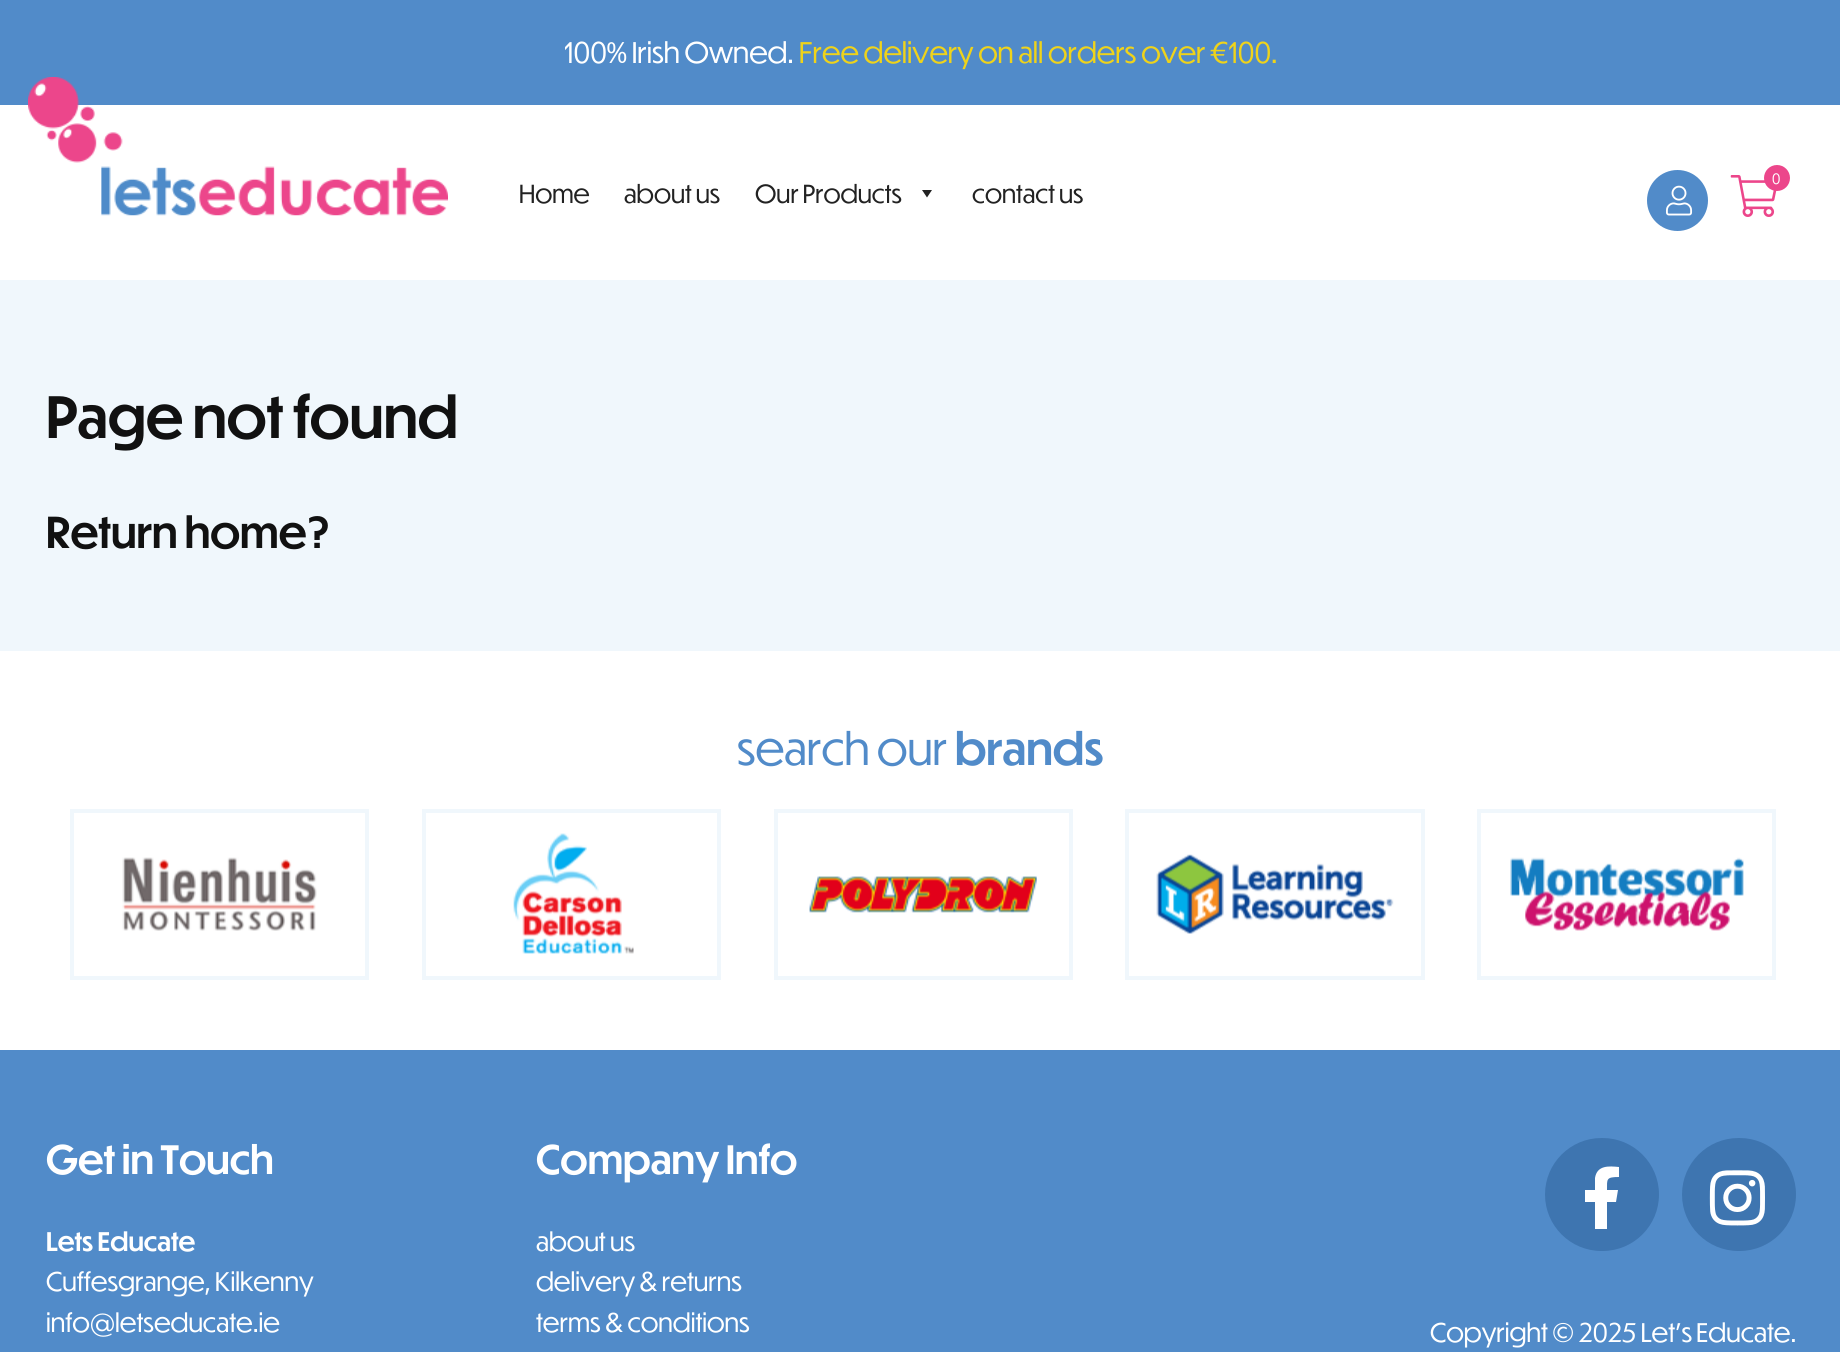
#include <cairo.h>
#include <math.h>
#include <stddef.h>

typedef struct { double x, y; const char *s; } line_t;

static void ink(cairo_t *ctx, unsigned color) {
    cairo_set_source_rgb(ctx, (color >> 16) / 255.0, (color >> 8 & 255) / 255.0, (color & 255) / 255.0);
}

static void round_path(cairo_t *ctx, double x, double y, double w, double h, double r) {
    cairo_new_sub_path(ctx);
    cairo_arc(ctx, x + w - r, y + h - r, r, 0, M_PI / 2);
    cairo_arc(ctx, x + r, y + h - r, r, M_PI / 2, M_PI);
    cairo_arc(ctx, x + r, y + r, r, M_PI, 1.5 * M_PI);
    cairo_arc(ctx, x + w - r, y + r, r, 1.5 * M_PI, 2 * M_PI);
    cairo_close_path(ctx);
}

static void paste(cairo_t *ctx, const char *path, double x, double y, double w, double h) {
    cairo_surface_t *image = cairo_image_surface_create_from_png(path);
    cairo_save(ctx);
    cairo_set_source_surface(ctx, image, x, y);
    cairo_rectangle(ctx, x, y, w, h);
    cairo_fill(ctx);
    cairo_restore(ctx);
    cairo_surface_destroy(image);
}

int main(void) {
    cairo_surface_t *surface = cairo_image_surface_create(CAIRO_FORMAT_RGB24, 1840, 1352);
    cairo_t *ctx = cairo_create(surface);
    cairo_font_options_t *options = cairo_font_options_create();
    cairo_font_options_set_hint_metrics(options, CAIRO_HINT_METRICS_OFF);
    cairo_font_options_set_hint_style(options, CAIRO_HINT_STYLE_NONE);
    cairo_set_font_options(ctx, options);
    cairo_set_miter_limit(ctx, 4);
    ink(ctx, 0xF0F7FC);
    cairo_paint(ctx);
    ink(ctx, 0x518BC9);
    cairo_rectangle(ctx, 0, 0, 1840, 105);
    cairo_fill(ctx);
    cairo_select_font_face(ctx, "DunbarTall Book", CAIRO_FONT_SLANT_NORMAL, CAIRO_FONT_WEIGHT_NORMAL);
    cairo_set_font_size(ctx, 28);
    ink(ctx, 0xFFFFFF);
    cairo_move_to(ctx, 564, 63);
    cairo_show_text(ctx, "100% Irish Owned.");
    ink(ctx, 0xEFD31A);
    cairo_move_to(ctx, 799, 63);
    cairo_show_text(ctx, "Free delivery on all orders over €100.");
    ink(ctx, 0xFFFFFF);
    cairo_rectangle(ctx, 0, 105, 1840, 175);
    cairo_fill(ctx);
    paste(ctx, "media/1.png", 28, 77, 420, 139);
    ink(ctx, 0x518BC9);
    cairo_arc(ctx, 1677.5, 200.5, 30.5, 0, 2 * M_PI);
    cairo_fill(ctx);
    paste(ctx, "media/2.png", 1666, 185, 27, 31);
    paste(ctx, "media/3.png", 1730, 175, 47, 42);
    ink(ctx, 0xEC468B);
    cairo_arc(ctx, 1777, 178, 13, 0, 2 * M_PI);
    cairo_fill(ctx);
    cairo_set_font_size(ctx, 14);
    ink(ctx, 0xFFFFFF);
    cairo_move_to(ctx, 1772, 184);
    cairo_show_text(ctx, "0");
    cairo_set_font_size(ctx, 24.5);
    ink(ctx, 0x222222);
    {
        static const line_t items[] = {
            {519, 203, "Home"},
            {624, 203, "about us"},
            {755, 203, "Our Products"},
        };
        for (size_t i = 0; i < sizeof items / sizeof *items; i++) {
            cairo_move_to(ctx, items[i].x, items[i].y);
            cairo_show_text(ctx, items[i].s);
        }
    }
    cairo_new_path(ctx);
    cairo_move_to(ctx, 932, 190);
    cairo_line_to(ctx, 927, 197.5);
    cairo_line_to(ctx, 922, 190);
    cairo_close_path(ctx);
    cairo_fill(ctx);
    cairo_move_to(ctx, 972, 203);
    cairo_show_text(ctx, "contact us");
    cairo_select_font_face(ctx, "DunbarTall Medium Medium", CAIRO_FONT_SLANT_NORMAL, CAIRO_FONT_WEIGHT_NORMAL);
    cairo_set_font_size(ctx, 56);
    ink(ctx, 0x111111);
    cairo_move_to(ctx, 46, 438);
    cairo_show_text(ctx, "Page not found");
    cairo_set_font_size(ctx, 42);
    cairo_move_to(ctx, 46, 548);
    cairo_show_text(ctx, "Return home?");
    ink(ctx, 0xFFFFFF);
    cairo_rectangle(ctx, 0, 651, 1840, 399);
    cairo_fill(ctx);
    cairo_select_font_face(ctx, "DunbarTall Book", CAIRO_FONT_SLANT_NORMAL, CAIRO_FONT_WEIGHT_NORMAL);
    cairo_set_font_size(ctx, 43.75);
    ink(ctx, 0x518BC9);
    cairo_move_to(ctx, 737, 765);
    cairo_show_text(ctx, "search our");
    cairo_select_font_face(ctx, "DunbarTall Medium Medium", CAIRO_FONT_SLANT_NORMAL, CAIRO_FONT_WEIGHT_NORMAL);
    cairo_move_to(ctx, 955, 765);
    cairo_show_text(ctx, "brands");
    cairo_rectangle(ctx, 72, 811, 295, 167);
    ink(ctx, 0xF0F7FC);
    cairo_set_line_width(ctx, 4);
    cairo_stroke(ctx);
    paste(ctx, "media/4.png", 122, 857, 195, 74);
    cairo_rectangle(ctx, 424, 811, 295, 167);
    cairo_stroke(ctx);
    paste(ctx, "media/5.png", 513, 833, 121, 121);
    cairo_rectangle(ctx, 776, 811, 295, 167);
    cairo_stroke(ctx);
    paste(ctx, "media/6.png", 809, 876, 228, 37);
    cairo_rectangle(ctx, 1127, 811, 296, 167);
    cairo_stroke(ctx);
    paste(ctx, "media/7.png", 1156, 854, 238, 80);
    cairo_rectangle(ctx, 1479, 811, 295, 167);
    cairo_stroke(ctx);
    paste(ctx, "media/8.png", 1510, 857, 234, 74);
    ink(ctx, 0x518BC9);
    cairo_rectangle(ctx, 0, 1050, 1840, 302);
    cairo_fill(ctx);
    cairo_set_font_size(ctx, 38.5);
    ink(ctx, 0xFFFFFF);
    cairo_move_to(ctx, 46, 1174);
    cairo_show_text(ctx, "Get in Touch");
    cairo_set_font_size(ctx, 25.25);
    cairo_move_to(ctx, 46, 1251);
    cairo_show_text(ctx, "Lets Educate");
    cairo_select_font_face(ctx, "DunbarTall Book", CAIRO_FONT_SLANT_NORMAL, CAIRO_FONT_WEIGHT_NORMAL);
    cairo_move_to(ctx, 46, 1291);
    cairo_show_text(ctx, "Cuffesgrange, Kilkenny");
    cairo_move_to(ctx, 46, 1332);
    cairo_show_text(ctx, "info@letseducate.ie");
    cairo_select_font_face(ctx, "DunbarTall Medium Medium", CAIRO_FONT_SLANT_NORMAL, CAIRO_FONT_WEIGHT_NORMAL);
    cairo_set_font_size(ctx, 38.5);
    cairo_move_to(ctx, 536, 1174);
    cairo_show_text(ctx, "Company Info");
    cairo_select_font_face(ctx, "DunbarTall Book", CAIRO_FONT_SLANT_NORMAL, CAIRO_FONT_WEIGHT_NORMAL);
    cairo_set_font_size(ctx, 25.25);
    {
        static const line_t items[] = {
            {536, 1251, "about us"},
            {536, 1291, "delivery & returns"},
            {536, 1332, "terms & conditions"},
        };
        for (size_t i = 0; i < sizeof items / sizeof *items; i++) {
            cairo_move_to(ctx, items[i].x, items[i].y);
            cairo_show_text(ctx, items[i].s);
        }
    }
    ink(ctx, 0x3E75B0);
    round_path(ctx, 1545, 1138, 114, 113, 56.5);
    cairo_fill(ctx);
    ink(ctx, 0xFFFFFF);
    cairo_new_path(ctx);
    cairo_move_to(ctx, 1616, 1202);
    cairo_line_to(ctx, 1607, 1202);
    cairo_line_to(ctx, 1607, 1229);
    cairo_line_to(ctx, 1595, 1229);
    cairo_line_to(ctx, 1595, 1202);
    cairo_line_to(ctx, 1585, 1202);
    cairo_line_to(ctx, 1585, 1190);
    cairo_line_to(ctx, 1595, 1190);
    cairo_line_to(ctx, 1595, 1178);
    cairo_curve_to(ctx, 1597, 1165, 1609, 1166, 1619, 1167);
    cairo_line_to(ctx, 1619, 1177);
    cairo_curve_to(ctx, 1606, 1177, 1607, 1179, 1607, 1190);
    cairo_line_to(ctx, 1618, 1190);
    cairo_close_path(ctx);
    cairo_fill(ctx);
    ink(ctx, 0x3E75B0);
    round_path(ctx, 1682, 1138, 114, 113, 56.5);
    cairo_fill(ctx);
    paste(ctx, "media/9.png", 1709, 1170, 56, 56);
    ink(ctx, 0xFFFFFF);
    cairo_move_to(ctx, 1430, 1342);
    cairo_show_text(ctx, "Copyright © 2025 Let's Educate.");
    cairo_surface_write_to_png(surface, "image.png");
    cairo_font_options_destroy(options);
    cairo_destroy(ctx);
    cairo_surface_destroy(surface);
    return 0;
}
